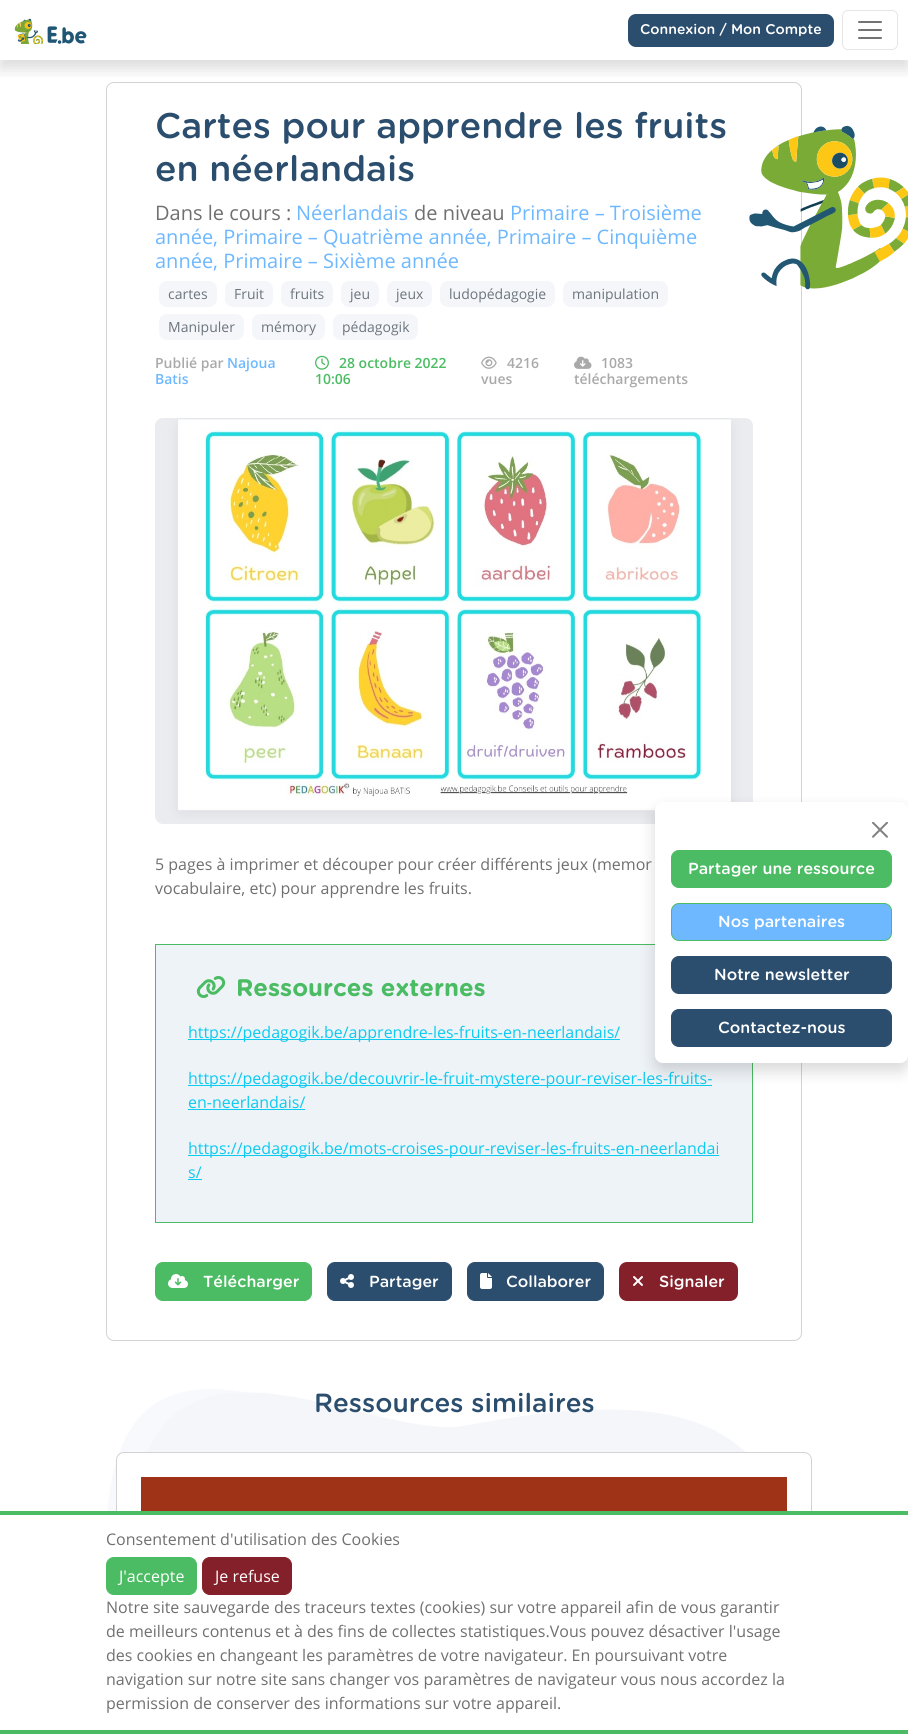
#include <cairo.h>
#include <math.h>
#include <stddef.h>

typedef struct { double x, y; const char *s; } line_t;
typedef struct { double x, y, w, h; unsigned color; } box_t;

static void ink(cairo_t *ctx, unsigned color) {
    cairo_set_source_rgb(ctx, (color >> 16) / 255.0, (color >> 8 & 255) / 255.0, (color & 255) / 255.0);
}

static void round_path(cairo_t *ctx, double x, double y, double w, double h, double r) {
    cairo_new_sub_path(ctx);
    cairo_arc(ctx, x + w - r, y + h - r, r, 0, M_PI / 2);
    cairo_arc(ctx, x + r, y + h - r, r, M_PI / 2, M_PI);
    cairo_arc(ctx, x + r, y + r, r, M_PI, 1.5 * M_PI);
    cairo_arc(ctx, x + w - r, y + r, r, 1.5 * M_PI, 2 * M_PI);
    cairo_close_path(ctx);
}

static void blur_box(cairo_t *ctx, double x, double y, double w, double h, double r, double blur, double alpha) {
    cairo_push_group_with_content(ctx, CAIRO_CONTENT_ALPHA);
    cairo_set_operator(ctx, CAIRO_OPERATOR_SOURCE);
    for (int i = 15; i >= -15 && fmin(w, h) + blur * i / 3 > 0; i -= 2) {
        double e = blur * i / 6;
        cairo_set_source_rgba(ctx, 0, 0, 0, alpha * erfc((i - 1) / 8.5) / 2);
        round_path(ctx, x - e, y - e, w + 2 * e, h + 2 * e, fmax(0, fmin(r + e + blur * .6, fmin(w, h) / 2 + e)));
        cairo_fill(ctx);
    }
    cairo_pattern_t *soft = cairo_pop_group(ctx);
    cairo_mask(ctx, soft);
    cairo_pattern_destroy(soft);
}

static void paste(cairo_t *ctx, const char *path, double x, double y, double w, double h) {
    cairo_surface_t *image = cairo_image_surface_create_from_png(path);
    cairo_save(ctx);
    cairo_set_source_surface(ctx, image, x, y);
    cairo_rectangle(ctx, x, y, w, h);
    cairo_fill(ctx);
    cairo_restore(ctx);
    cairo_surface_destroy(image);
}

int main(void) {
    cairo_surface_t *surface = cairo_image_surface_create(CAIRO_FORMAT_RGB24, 908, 1734);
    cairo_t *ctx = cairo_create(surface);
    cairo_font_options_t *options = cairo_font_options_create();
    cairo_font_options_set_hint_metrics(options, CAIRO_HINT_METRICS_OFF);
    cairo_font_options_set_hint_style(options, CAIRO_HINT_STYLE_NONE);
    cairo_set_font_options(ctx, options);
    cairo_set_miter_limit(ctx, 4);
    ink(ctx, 0xFFFFFF);
    cairo_paint(ctx);
    round_path(ctx, 106.5, 82.5, 695, 1258, 7.5);
    ink(ctx, 0xD3D3D3);
    cairo_set_line_width(ctx, 1);
    cairo_stroke(ctx);
    cairo_save(ctx);
    cairo_rectangle(ctx, 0, 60, 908, 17);
    cairo_clip(ctx);
    ink(ctx, 0x000000);
    blur_box(ctx, 0, 8, 908, 60, 0, 8, 0.15);
    cairo_restore(ctx);
    paste(ctx, "media/1.png", 14, 18, 73, 26);
    ink(ctx, 0x2C4E6E);
    round_path(ctx, 628, 14, 206, 33, 8);
    cairo_fill(ctx);
    cairo_select_font_face(ctx, "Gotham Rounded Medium", CAIRO_FONT_SLANT_NORMAL, CAIRO_FONT_WEIGHT_NORMAL);
    cairo_set_font_size(ctx, 14);
    ink(ctx, 0xFFFFFF);
    cairo_move_to(ctx, 640, 34);
    cairo_show_text(ctx, "Connexion / Mon Compte");
    round_path(ctx, 842.5, 10.5, 55, 39, 5.5);
    ink(ctx, 0xE6E6E6);
    cairo_stroke(ctx);
    paste(ctx, "media/2.png", 858, 21, 24, 18);
    cairo_set_font_size(ctx, 35.6);
    ink(ctx, 0x2C4E6E);
    cairo_move_to(ctx, 155, 138);
    cairo_show_text(ctx, "Cartes pour apprendre les fruits");
    cairo_move_to(ctx, 155, 181);
    cairo_show_text(ctx, "en néerlandais");
    paste(ctx, "media/3.png", 749, 125, 159, 165);
    cairo_select_font_face(ctx, "Open Sans", CAIRO_FONT_SLANT_NORMAL, CAIRO_FONT_WEIGHT_NORMAL);
    cairo_set_font_size(ctx, 20);
    ink(ctx, 0x707070);
    cairo_move_to(ctx, 155, 220);
    cairo_show_text(ctx, "Dans le cours :");
    ink(ctx, 0x6EB8FF);
    cairo_move_to(ctx, 296, 220);
    cairo_show_text(ctx, "Néerlandais");
    ink(ctx, 0x707070);
    cairo_move_to(ctx, 414, 220);
    cairo_show_text(ctx, "de niveau");
    ink(ctx, 0x6EB8FF);
    {
        static const line_t items[] = {
            {510, 220, "Primaire – Troisième"},
            {155, 244, "année, Primaire – Quatrième année, Primaire – Cinquième"},
            {155, 268, "année, Primaire – Sixième année"},
        };
        for (size_t i = 0; i < sizeof items / sizeof *items; i++) {
            cairo_move_to(ctx, items[i].x, items[i].y);
            cairo_show_text(ctx, items[i].s);
        }
    }
    ink(ctx, 0xF5F6FA);
    round_path(ctx, 159, 281, 58, 26, 8);
    cairo_fill(ctx);
    cairo_set_font_size(ctx, 14);
    ink(ctx, 0x6C757D);
    cairo_move_to(ctx, 168, 299);
    cairo_show_text(ctx, "cartes");
    ink(ctx, 0xF5F6FA);
    round_path(ctx, 225, 281, 48, 26, 8);
    cairo_fill(ctx);
    ink(ctx, 0x6C757D);
    cairo_move_to(ctx, 234, 299);
    cairo_show_text(ctx, "Fruit");
    ink(ctx, 0xF5F6FA);
    round_path(ctx, 281, 281, 52, 26, 8);
    cairo_fill(ctx);
    ink(ctx, 0x6C757D);
    cairo_move_to(ctx, 290, 299);
    cairo_show_text(ctx, "fruits");
    ink(ctx, 0xF5F6FA);
    round_path(ctx, 341, 281, 38, 26, 8);
    cairo_fill(ctx);
    ink(ctx, 0x6C757D);
    cairo_move_to(ctx, 350, 299);
    cairo_show_text(ctx, "jeu");
    ink(ctx, 0xF5F6FA);
    round_path(ctx, 387, 281, 45, 26, 8);
    cairo_fill(ctx);
    ink(ctx, 0x6C757D);
    cairo_move_to(ctx, 396, 299);
    cairo_show_text(ctx, "jeux");
    ink(ctx, 0xF5F6FA);
    round_path(ctx, 440, 281, 115, 26, 8);
    cairo_fill(ctx);
    ink(ctx, 0x6C757D);
    cairo_move_to(ctx, 449, 299);
    cairo_show_text(ctx, "ludopédagogie");
    ink(ctx, 0xF5F6FA);
    round_path(ctx, 563, 281, 105, 26, 8);
    cairo_fill(ctx);
    ink(ctx, 0x6C757D);
    cairo_move_to(ctx, 572, 299);
    cairo_show_text(ctx, "manipulation");
    ink(ctx, 0xF5F6FA);
    round_path(ctx, 159, 314, 85, 26, 8);
    cairo_fill(ctx);
    ink(ctx, 0x6C757D);
    cairo_move_to(ctx, 168, 332);
    cairo_show_text(ctx, "Manipuler");
    ink(ctx, 0xF5F6FA);
    round_path(ctx, 252, 314, 73, 26, 8);
    cairo_fill(ctx);
    ink(ctx, 0x6C757D);
    cairo_move_to(ctx, 261, 332);
    cairo_show_text(ctx, "mémory");
    ink(ctx, 0xF5F6FA);
    round_path(ctx, 333, 314, 85, 26, 8);
    cairo_fill(ctx);
    ink(ctx, 0x6C757D);
    cairo_move_to(ctx, 342, 332);
    cairo_show_text(ctx, "pédagogik");
    cairo_select_font_face(ctx, "Open Sans SemiBold", CAIRO_FONT_SLANT_NORMAL, CAIRO_FONT_WEIGHT_NORMAL);
    ink(ctx, 0xA9A9A9);
    cairo_move_to(ctx, 155, 368);
    cairo_show_text(ctx, "Publié par");
    ink(ctx, 0x6EB8FF);
    cairo_move_to(ctx, 227, 368);
    cairo_show_text(ctx, "Najoua");
    cairo_move_to(ctx, 155, 384);
    cairo_show_text(ctx, "Batis");
    paste(ctx, "media/4.png", 315, 355, 14, 15);
    ink(ctx, 0x4BBC63);
    cairo_move_to(ctx, 339, 368);
    cairo_show_text(ctx, "28 octobre 2022");
    cairo_move_to(ctx, 315, 384);
    cairo_show_text(ctx, "10:06");
    paste(ctx, "media/5.png", 481, 356, 16, 13);
    ink(ctx, 0xA9A9A9);
    cairo_move_to(ctx, 507, 368);
    cairo_show_text(ctx, "4216");
    cairo_move_to(ctx, 481, 384);
    cairo_show_text(ctx, "vues");
    paste(ctx, "media/6.png", 574, 356, 18, 13);
    cairo_move_to(ctx, 601, 368);
    cairo_show_text(ctx, "1083");
    cairo_move_to(ctx, 574, 384);
    cairo_show_text(ctx, "téléchargements");
    paste(ctx, "media/7.png", 155, 418, 598, 406);
    cairo_select_font_face(ctx, "Open Sans", CAIRO_FONT_SLANT_NORMAL, CAIRO_FONT_WEIGHT_NORMAL);
    cairo_set_font_size(ctx, 16);
    ink(ctx, 0x707070);
    cairo_move_to(ctx, 155, 870);
    cairo_show_text(ctx, "5 pages à imprimer et découper pour créer différents jeux (memor");
    cairo_move_to(ctx, 155, 894);
    cairo_show_text(ctx, "vocabulaire, etc) pour apprendre les fruits.");
    ink(ctx, 0xEEF3F8);
    cairo_rectangle(ctx, 155.5, 944.5, 597, 278);
    cairo_fill_preserve(ctx);
    ink(ctx, 0x4BBC63);
    cairo_stroke(ctx);
    paste(ctx, "media/8.png", 196, 976, 30, 22);
    cairo_select_font_face(ctx, "Gotham Rounded", CAIRO_FONT_SLANT_NORMAL, CAIRO_FONT_WEIGHT_BOLD);
    cairo_set_font_size(ctx, 24);
    cairo_move_to(ctx, 236, 996);
    cairo_show_text(ctx, "Ressources externes");
    ink(ctx, 0x0DCAF0);
    cairo_rectangle(ctx, 188, 1039, 432, 1);
    cairo_fill(ctx);
    cairo_select_font_face(ctx, "Open Sans", CAIRO_FONT_SLANT_NORMAL, CAIRO_FONT_WEIGHT_NORMAL);
    cairo_set_font_size(ctx, 16);
    cairo_move_to(ctx, 188, 1038);
    cairo_show_text(ctx, "https://pedagogik.be/apprendre-les-fruits-en-neerlandais/");
    cairo_rectangle(ctx, 188, 1085, 524, 1);
    cairo_fill(ctx);
    cairo_move_to(ctx, 188, 1084);
    cairo_show_text(ctx, "https://pedagogik.be/decouvrir-le-fruit-mystere-pour-reviser-les-fruits-");
    cairo_move_to(ctx, 188, 1108);
    cairo_show_text(ctx, "en-neerlandais/");
    cairo_rectangle(ctx, 188, 1109, 117, 1);
    cairo_fill(ctx);
    cairo_rectangle(ctx, 188, 1155, 531, 1);
    cairo_fill(ctx);
    cairo_move_to(ctx, 188, 1154);
    cairo_show_text(ctx, "https://pedagogik.be/mots-croises-pour-reviser-les-fruits-en-neerlandai");
    cairo_move_to(ctx, 188, 1178);
    cairo_show_text(ctx, "s/");
    cairo_rectangle(ctx, 188, 1179, 14, 1);
    cairo_fill(ctx);
    ink(ctx, 0x4BBC63);
    round_path(ctx, 155.5, 1262.5, 156, 38, 7.5);
    cairo_fill_preserve(ctx);
    cairo_stroke(ctx);
    paste(ctx, "media/9.png", 168, 1274, 20, 14);
    cairo_select_font_face(ctx, "Gotham Rounded Medium", CAIRO_FONT_SLANT_NORMAL, CAIRO_FONT_WEIGHT_NORMAL);
    ink(ctx, 0xFFFFFF);
    cairo_move_to(ctx, 203, 1287);
    cairo_show_text(ctx, "Télécharger");
    ink(ctx, 0x2C4E6E);
    round_path(ctx, 327.5, 1262.5, 124, 38, 7.5);
    cairo_fill_preserve(ctx);
    cairo_stroke(ctx);
    paste(ctx, "media/10.png", 340, 1274, 14, 14);
    ink(ctx, 0xFFFFFF);
    cairo_move_to(ctx, 369, 1287);
    cairo_show_text(ctx, "Partager");
    ink(ctx, 0x2C4E6E);
    round_path(ctx, 467.5, 1262.5, 136, 38, 7.5);
    cairo_fill_preserve(ctx);
    cairo_stroke(ctx);
    paste(ctx, "media/11.png", 480, 1273, 12, 16);
    ink(ctx, 0xFFFFFF);
    cairo_move_to(ctx, 506, 1287);
    cairo_show_text(ctx, "Collaborer");
    ink(ctx, 0x842029);
    round_path(ctx, 619, 1262, 119, 39, 8);
    cairo_fill(ctx);
    paste(ctx, "media/12.png", 633, 1276, 10, 10);
    ink(ctx, 0xFFFFFF);
    cairo_move_to(ctx, 659, 1287);
    cairo_show_text(ctx, "Signaler");
    paste(ctx, "media/13.png", 107, 1389, 640, 122);
    cairo_set_font_size(ctx, 26.25);
    ink(ctx, 0x2C4E6E);
    cairo_move_to(ctx, 314, 1412);
    cairo_show_text(ctx, "Ressources similaires");
    ink(ctx, 0xFFFFFF);
    round_path(ctx, 116.5, 1452.5, 695, 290, 7.5);
    cairo_fill_preserve(ctx);
    ink(ctx, 0xD3D3D3);
    cairo_stroke(ctx);
    paste(ctx, "media/14.png", 141, 1477, 646, 34);
    ink(ctx, 0x000000);
    blur_box(ctx, 655, 810, 253, 261, 8, 8, 0.15);
    ink(ctx, 0xFFFFFF);
    round_path(ctx, 655, 802, 253, 261, 8);
    cairo_fill(ctx);
    paste(ctx, "media/15.png", 872, 822, 16, 16);
    ink(ctx, 0x4BBC63);
    round_path(ctx, 671.5, 850.5, 220, 37, 7.5);
    cairo_fill_preserve(ctx);
    cairo_stroke(ctx);
    cairo_set_font_size(ctx, 16);
    ink(ctx, 0xFFFFFF);
    cairo_move_to(ctx, 688, 874);
    cairo_show_text(ctx, "Partager une ressource");
    ink(ctx, 0x6EB8FF);
    round_path(ctx, 671.5, 903.5, 220, 37, 7.5);
    cairo_fill_preserve(ctx);
    ink(ctx, 0x4BBC63);
    cairo_stroke(ctx);
    ink(ctx, 0xFFFFFF);
    cairo_move_to(ctx, 718, 927);
    cairo_show_text(ctx, "Nos partenaires");
    ink(ctx, 0x2C4E6E);
    round_path(ctx, 671.5, 956.5, 220, 37, 7.5);
    cairo_fill_preserve(ctx);
    cairo_stroke(ctx);
    ink(ctx, 0xFFFFFF);
    cairo_move_to(ctx, 714, 980);
    cairo_show_text(ctx, "Notre newsletter");
    ink(ctx, 0x2C4E6E);
    round_path(ctx, 671.5, 1009.5, 220, 37, 7.5);
    cairo_fill_preserve(ctx);
    cairo_stroke(ctx);
    ink(ctx, 0xFFFFFF);
    cairo_move_to(ctx, 718, 1033);
    cairo_show_text(ctx, "Contactez-nous");
    {
        static const box_t items[] = {
            {116, 1515, 696, 215, 0xFFFFFF},
            {0, 1511, 908, 4, 0x4BBC63},
            {0, 1730, 908, 4, 0x4BBC63},
        };
        for (size_t i = 0; i < sizeof items / sizeof *items; i++) {
            ink(ctx, items[i].color);
            cairo_rectangle(ctx, items[i].x, items[i].y, items[i].w, items[i].h);
            cairo_fill(ctx);
        }
    }
    cairo_select_font_face(ctx, "Open Sans", CAIRO_FONT_SLANT_NORMAL, CAIRO_FONT_WEIGHT_NORMAL);
    ink(ctx, 0x707070);
    cairo_move_to(ctx, 106, 1545);
    cairo_show_text(ctx, "Consentement d'utilisation des Cookies");
    ink(ctx, 0x4BBC63);
    round_path(ctx, 106.5, 1557.5, 90, 37, 7.5);
    cairo_fill_preserve(ctx);
    cairo_stroke(ctx);
    ink(ctx, 0xFFFFFF);
    cairo_move_to(ctx, 119, 1582);
    cairo_show_text(ctx, "J'accepte");
    ink(ctx, 0x842029);
    round_path(ctx, 202.5, 1557.5, 89, 37, 7.5);
    cairo_fill_preserve(ctx);
    cairo_stroke(ctx);
    ink(ctx, 0xFFFFFF);
    cairo_move_to(ctx, 215, 1582);
    cairo_show_text(ctx, "Je refuse");
    ink(ctx, 0x707070);
    {
        static const line_t items[] = {
            {106, 1613, "Notre site sauvegarde des traceurs textes (cookies) sur votre appareil afin de vous garantir"},
            {106, 1637, "de meilleurs contenus et à des fins de collectes statistiques.Vous pouvez désactiver l'usage"},
            {106, 1661, "des cookies en changeant les paramètres de votre navigateur. En poursuivant votre"},
            {106, 1685, "navigation sur notre site sans changer vos paramètres de navigateur vous nous accordez la"},
            {106, 1709, "permission de conserver des informations sur votre appareil."},
        };
        for (size_t i = 0; i < sizeof items / sizeof *items; i++) {
            cairo_move_to(ctx, items[i].x, items[i].y);
            cairo_show_text(ctx, items[i].s);
        }
    }
    cairo_surface_write_to_png(surface, "image.png");
    cairo_font_options_destroy(options);
    cairo_destroy(ctx);
    cairo_surface_destroy(surface);
    return 0;
}
